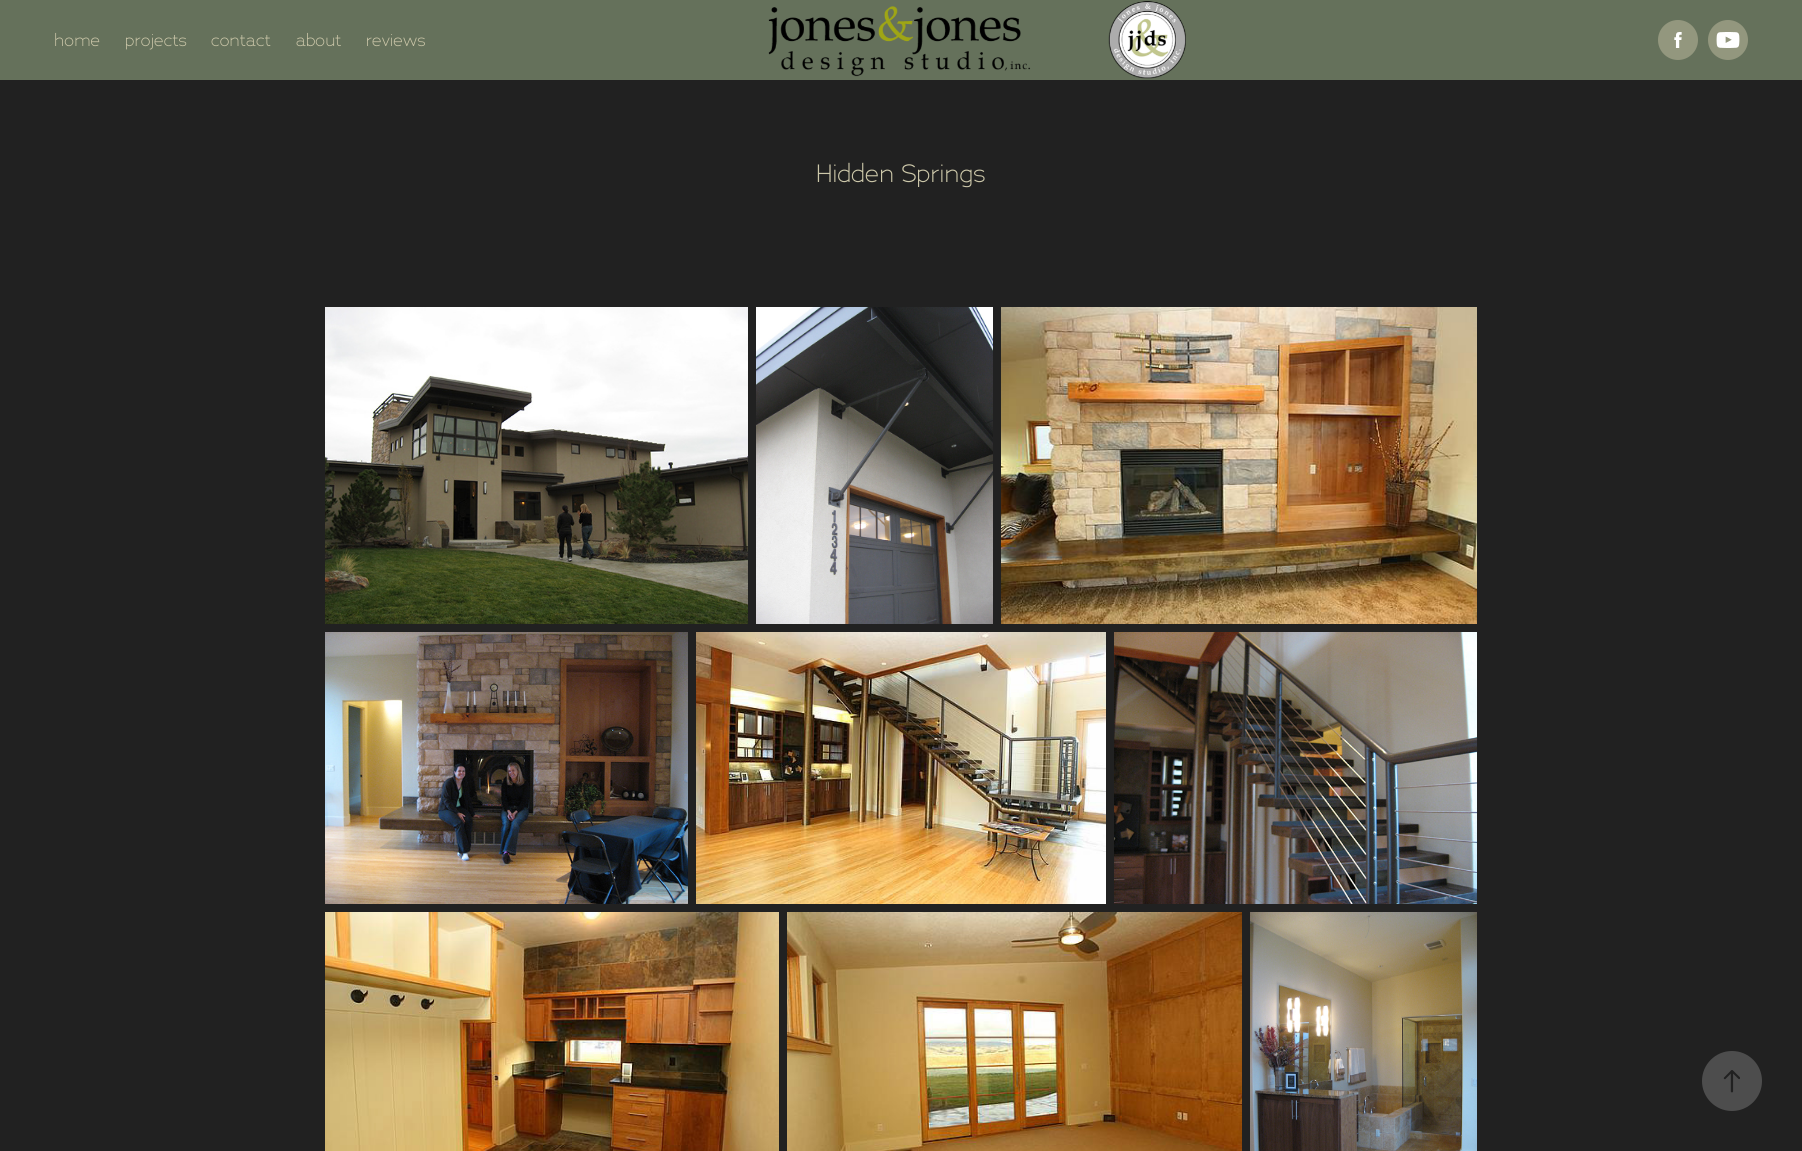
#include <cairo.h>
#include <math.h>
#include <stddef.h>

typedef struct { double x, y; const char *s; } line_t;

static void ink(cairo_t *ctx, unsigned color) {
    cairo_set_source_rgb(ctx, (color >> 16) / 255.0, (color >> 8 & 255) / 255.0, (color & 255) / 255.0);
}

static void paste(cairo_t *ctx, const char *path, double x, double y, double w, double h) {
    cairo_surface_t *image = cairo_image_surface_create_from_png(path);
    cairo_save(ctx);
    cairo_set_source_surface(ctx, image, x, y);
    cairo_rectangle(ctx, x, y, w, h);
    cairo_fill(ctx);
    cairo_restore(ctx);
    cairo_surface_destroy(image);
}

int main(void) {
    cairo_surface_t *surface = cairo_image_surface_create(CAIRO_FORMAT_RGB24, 1802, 1151);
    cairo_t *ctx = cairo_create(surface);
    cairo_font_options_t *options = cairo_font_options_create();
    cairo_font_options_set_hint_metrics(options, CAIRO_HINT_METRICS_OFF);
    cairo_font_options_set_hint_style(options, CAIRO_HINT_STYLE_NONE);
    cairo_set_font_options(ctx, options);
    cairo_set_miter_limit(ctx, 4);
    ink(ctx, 0x212121);
    cairo_paint(ctx);
    ink(ctx, 0x65715B);
    cairo_rectangle(ctx, 0, 0, 1802, 80);
    cairo_fill(ctx);
    cairo_select_font_face(ctx, "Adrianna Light", CAIRO_FONT_SLANT_NORMAL, CAIRO_FONT_WEIGHT_NORMAL);
    cairo_set_font_size(ctx, 17);
    ink(ctx, 0xCDC8AA);
    {
        static const line_t items[] = {
            {54, 46, "home"},
            {125, 46, "projects"},
            {211, 46, "contact"},
            {296, 46, "about"},
            {366, 46, "reviews"},
        };
        for (size_t i = 0; i < sizeof items / sizeof *items; i++) {
            cairo_move_to(ctx, items[i].x, items[i].y);
            cairo_show_text(ctx, items[i].s);
        }
    }
    paste(ctx, "media/1.png", 768, 1, 418, 78);
    ink(ctx, 0x93977E);
    cairo_arc(ctx, 1678, 40, 20, 0, 2 * M_PI);
    cairo_fill(ctx);
    paste(ctx, "media/2.png", 1674, 32, 8, 16);
    cairo_arc(ctx, 1728, 40, 20, 0, 2 * M_PI);
    cairo_fill(ctx);
    paste(ctx, "media/3.png", 1716, 32, 24, 16);
    cairo_set_font_size(ctx, 25);
    ink(ctx, 0xCDC8AA);
    cairo_move_to(ctx, 816, 182);
    cairo_show_text(ctx, "Hidden Springs");
    paste(ctx, "media/4.png", 325, 307, 423, 317);
    paste(ctx, "media/5.png", 756, 307, 237, 317);
    paste(ctx, "media/6.png", 1001, 307, 476, 317);
    paste(ctx, "media/7.png", 325, 632, 363, 272);
    paste(ctx, "media/8.png", 696, 632, 410, 272);
    paste(ctx, "media/9.png", 1114, 632, 363, 272);
    paste(ctx, "media/10.png", 325, 912, 454, 239);
    paste(ctx, "media/11.png", 787, 912, 455, 239);
    paste(ctx, "media/12.png", 1250, 912, 227, 239);
    ink(ctx, 0x4D4D4D);
    cairo_arc(ctx, 1732, 1081, 30, 0, 2 * M_PI);
    cairo_fill(ctx);
    paste(ctx, "media/13.png", 1723, 1070, 17, 23);
    cairo_surface_write_to_png(surface, "image.png");
    cairo_font_options_destroy(options);
    cairo_destroy(ctx);
    cairo_surface_destroy(surface);
    return 0;
}
